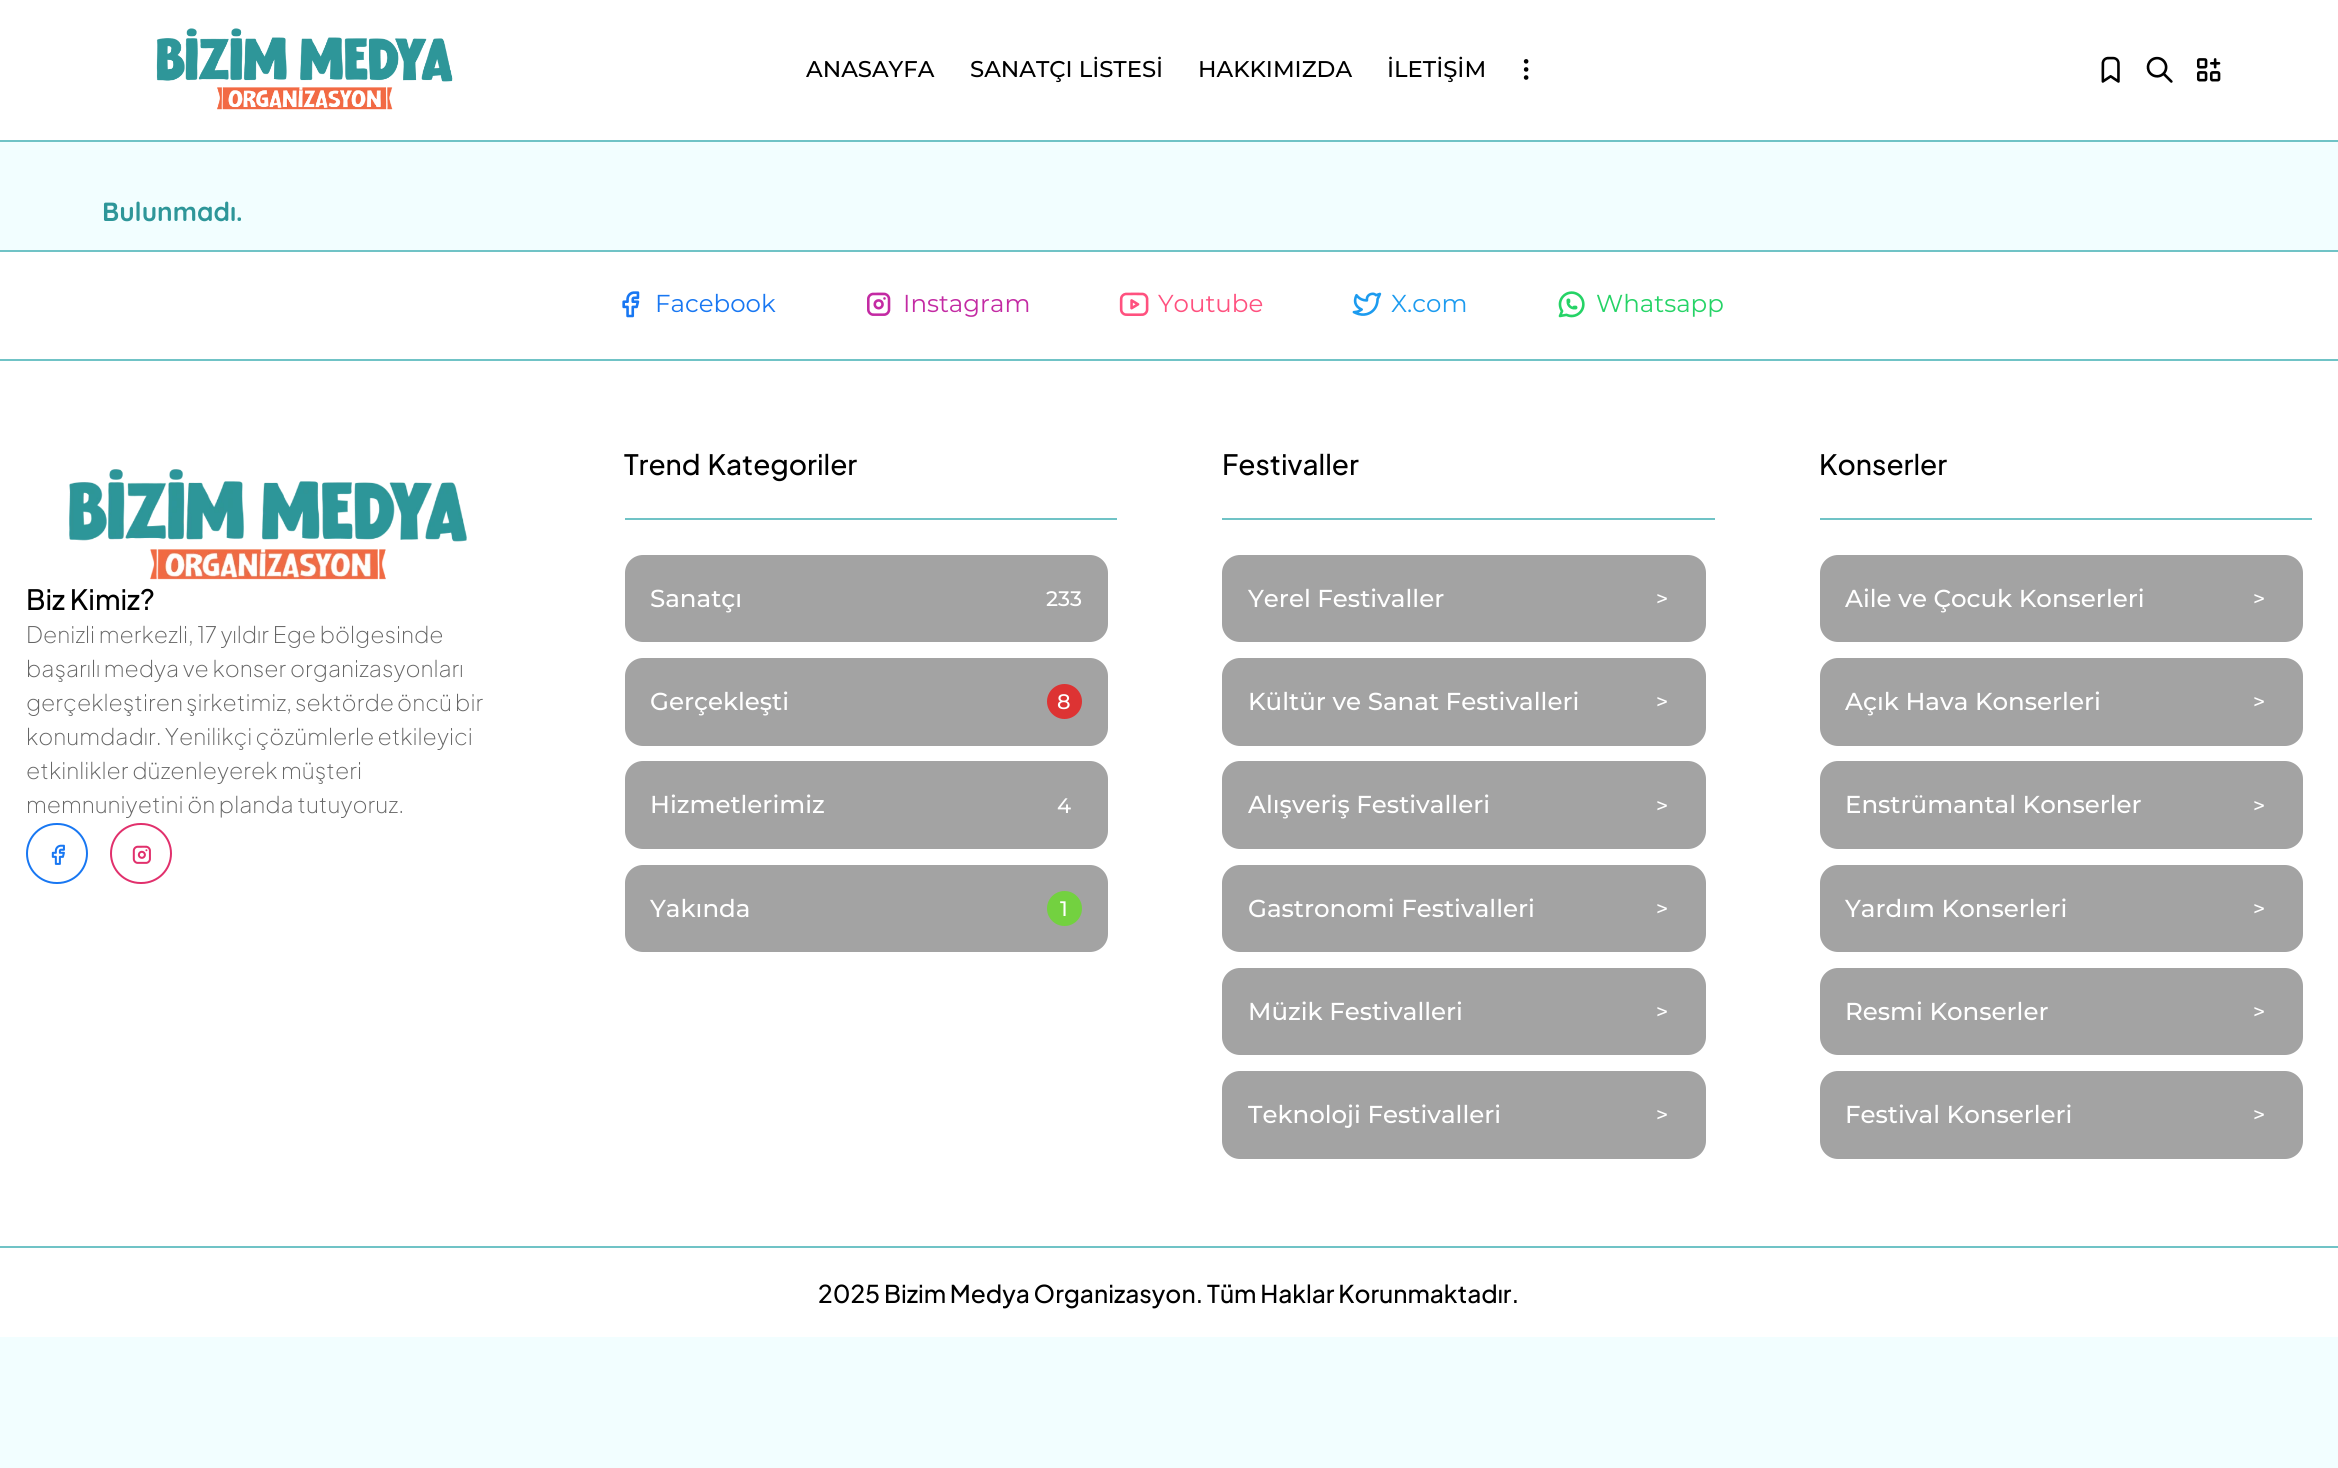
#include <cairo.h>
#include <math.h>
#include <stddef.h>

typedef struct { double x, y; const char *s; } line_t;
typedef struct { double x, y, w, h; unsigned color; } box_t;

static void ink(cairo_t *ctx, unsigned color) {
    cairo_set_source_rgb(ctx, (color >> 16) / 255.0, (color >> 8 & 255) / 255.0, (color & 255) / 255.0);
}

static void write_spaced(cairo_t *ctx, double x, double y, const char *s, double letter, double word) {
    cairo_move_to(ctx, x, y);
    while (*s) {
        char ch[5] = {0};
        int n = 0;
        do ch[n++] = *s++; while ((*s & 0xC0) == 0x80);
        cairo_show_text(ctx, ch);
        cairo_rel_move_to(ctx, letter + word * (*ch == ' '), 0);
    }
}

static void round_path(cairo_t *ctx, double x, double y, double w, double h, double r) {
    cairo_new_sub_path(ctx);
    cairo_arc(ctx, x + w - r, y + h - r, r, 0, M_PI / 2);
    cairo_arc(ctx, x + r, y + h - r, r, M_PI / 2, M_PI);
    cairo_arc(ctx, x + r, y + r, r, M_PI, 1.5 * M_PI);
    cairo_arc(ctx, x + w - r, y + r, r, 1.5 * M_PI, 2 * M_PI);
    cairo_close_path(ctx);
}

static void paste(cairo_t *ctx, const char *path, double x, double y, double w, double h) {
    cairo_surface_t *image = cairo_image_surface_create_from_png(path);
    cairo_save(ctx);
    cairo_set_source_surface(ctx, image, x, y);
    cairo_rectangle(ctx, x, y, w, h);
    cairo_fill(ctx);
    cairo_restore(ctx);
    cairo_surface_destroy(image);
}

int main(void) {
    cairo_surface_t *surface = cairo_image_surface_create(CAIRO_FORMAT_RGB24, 2338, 1468);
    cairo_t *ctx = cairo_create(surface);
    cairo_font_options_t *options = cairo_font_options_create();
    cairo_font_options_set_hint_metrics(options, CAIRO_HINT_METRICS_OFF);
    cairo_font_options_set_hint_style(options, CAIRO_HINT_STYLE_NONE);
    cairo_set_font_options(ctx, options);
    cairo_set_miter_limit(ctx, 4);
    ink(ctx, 0xF2FEFF);
    cairo_paint(ctx);
    ink(ctx, 0xFFFFFF);
    cairo_rectangle(ctx, 0, 0, 2338, 140);
    cairo_fill(ctx);
    ink(ctx, 0x70C3C6);
    cairo_rectangle(ctx, 0, 140, 2338, 2);
    cairo_fill(ctx);
    paste(ctx, "media/1.png", 156, 28, 297, 82);
    cairo_select_font_face(ctx, "Montserrat Medium", CAIRO_FONT_SLANT_NORMAL, CAIRO_FONT_WEIGHT_NORMAL);
    cairo_set_font_size(ctx, 22.75);
    ink(ctx, 0x000000);
    {
        static const line_t items[] = {
            {806, 77, "ANASAYFA"},
            {970, 77, "SANATÇI LİSTESİ"},
            {1198, 77, "HAKKIMIZDA"},
            {1387, 77, "İLETİŞİM"},
        };
        for (size_t i = 0; i < sizeof items / sizeof *items; i++) {
            cairo_move_to(ctx, items[i].x, items[i].y);
            cairo_show_text(ctx, items[i].s);
        }
    }
    paste(ctx, "media/2.png", 1523, 59, 6, 21);
    paste(ctx, "media/3.png", 2101, 56, 19, 27);
    paste(ctx, "media/4.png", 2146, 56, 27, 27);
    paste(ctx, "media/5.png", 2196, 58, 25, 24);
    cairo_select_font_face(ctx, "Quicksand", CAIRO_FONT_SLANT_NORMAL, CAIRO_FONT_WEIGHT_BOLD);
    cairo_set_font_size(ctx, 26.25);
    ink(ctx, 0x2E9699);
    cairo_move_to(ctx, 102, 221);
    cairo_show_text(ctx, "Bulunmadı.");
    {
        static const box_t items[] = {
            {0, 252, 2338, 1085, 0xFFFFFF},
            {0, 250, 2338, 2, 0x70C3C6},
            {0, 359, 2338, 2, 0x70C3C6},
        };
        for (size_t i = 0; i < sizeof items / sizeof *items; i++) {
            ink(ctx, items[i].color);
            cairo_rectangle(ctx, items[i].x, items[i].y, items[i].w, items[i].h);
            cairo_fill(ctx);
        }
    }
    paste(ctx, "media/6.png", 622, 291, 18, 27);
    cairo_select_font_face(ctx, "Montserrat", CAIRO_FONT_SLANT_NORMAL, CAIRO_FONT_WEIGHT_NORMAL);
    cairo_set_font_size(ctx, 24.5);
    ink(ctx, 0x1877F2);
    cairo_move_to(ctx, 655, 312);
    cairo_show_text(ctx, "Facebook");
    paste(ctx, "media/7.png", 867, 292, 24, 24);
    ink(ctx, 0xC32AA3);
    cairo_move_to(ctx, 903, 312);
    cairo_show_text(ctx, "Instagram");
    paste(ctx, "media/8.png", 1119, 292, 30, 24);
    ink(ctx, 0xFF517F);
    cairo_move_to(ctx, 1158, 312);
    cairo_show_text(ctx, "Youtube");
    paste(ctx, "media/9.png", 1352, 292, 30, 24);
    ink(ctx, 0x1C9BEF);
    cairo_move_to(ctx, 1391, 312);
    cairo_show_text(ctx, "X.com");
    paste(ctx, "media/10.png", 1558, 291, 27, 27);
    ink(ctx, 0x25D366);
    cairo_move_to(ctx, 1596, 312);
    cairo_show_text(ctx, "Whatsapp");
    paste(ctx, "media/11.png", 69, 469, 398, 111);
    cairo_select_font_face(ctx, "Plus Jakarta Sans Medium", CAIRO_FONT_SLANT_NORMAL, CAIRO_FONT_WEIGHT_NORMAL);
    cairo_set_font_size(ctx, 28);
    ink(ctx, 0x000000);
    cairo_move_to(ctx, 26, 610);
    cairo_show_text(ctx, "Biz Kimiz?");
    cairo_select_font_face(ctx, "Plus Jakarta Sans ExtraLight", CAIRO_FONT_SLANT_NORMAL, CAIRO_FONT_WEIGHT_NORMAL);
    cairo_set_font_size(ctx, 22.75);
    ink(ctx, 0x666666);
    cairo_move_to(ctx, 26, 643);
    cairo_show_text(ctx, "Denizli merkezli, 17 yıldır Ege bölgesinde");
    cairo_move_to(ctx, 26, 677);
    cairo_show_text(ctx, "başarılı medya ve konser organizasyonları");
    write_spaced(ctx, 26, 711, "gerçekleştiren şirketimiz, sektörde öncü bir", 0, -0.5);
    write_spaced(ctx, 26, 745, "konumdadır. Yenilikçi çözümlerle etkileyici", 0, -0.5);
    cairo_move_to(ctx, 26, 779);
    cairo_show_text(ctx, "etkinlikler düzenleyerek müşteri");
    cairo_move_to(ctx, 26, 813);
    cairo_show_text(ctx, "memnuniyetini ön planda tutuyoruz.");
    round_path(ctx, 27, 824, 60, 59, 29.5);
    ink(ctx, 0x1877F2);
    cairo_stroke(ctx);
    paste(ctx, "media/12.png", 51, 844, 14, 21);
    round_path(ctx, 111, 824, 60, 59, 29.5);
    ink(ctx, 0xE1306C);
    cairo_stroke(ctx);
    paste(ctx, "media/13.png", 132, 845, 19, 19);
    ink(ctx, 0x70C3C6);
    cairo_rectangle(ctx, 625, 518, 492, 2);
    cairo_fill(ctx);
    cairo_select_font_face(ctx, "Plus Jakarta Sans Medium", CAIRO_FONT_SLANT_NORMAL, CAIRO_FONT_WEIGHT_NORMAL);
    cairo_set_font_size(ctx, 28);
    ink(ctx, 0x000000);
    write_spaced(ctx, 624, 475, "Trend Kategoriler", 0, 2);
    ink(ctx, 0xA3A3A3);
    round_path(ctx, 625, 555, 483, 87, 18);
    cairo_fill(ctx);
    cairo_select_font_face(ctx, "Montserrat Medium", CAIRO_FONT_SLANT_NORMAL, CAIRO_FONT_WEIGHT_NORMAL);
    cairo_set_font_size(ctx, 24.5);
    ink(ctx, 0xFFFFFF);
    cairo_move_to(ctx, 650, 607);
    cairo_show_text(ctx, "Sanatçı");
    cairo_set_font_size(ctx, 21);
    cairo_move_to(ctx, 1046, 606);
    cairo_show_text(ctx, "233");
    ink(ctx, 0xA3A3A3);
    round_path(ctx, 625, 658, 483, 88, 18);
    cairo_fill(ctx);
    cairo_set_font_size(ctx, 24.5);
    ink(ctx, 0xFFFFFF);
    cairo_move_to(ctx, 650, 710);
    cairo_show_text(ctx, "Gerçekleşti");
    ink(ctx, 0xDD3333);
    cairo_new_path(ctx);
    cairo_arc(ctx, 1064.5, 701.5, 17.5, 0, 2 * M_PI);
    cairo_fill(ctx);
    cairo_set_font_size(ctx, 21);
    ink(ctx, 0xFFFFFF);
    cairo_move_to(ctx, 1057, 709);
    cairo_show_text(ctx, "8");
    ink(ctx, 0xA3A3A3);
    round_path(ctx, 625, 761, 483, 88, 18);
    cairo_fill(ctx);
    cairo_set_font_size(ctx, 24.5);
    ink(ctx, 0xFFFFFF);
    cairo_move_to(ctx, 650, 813);
    cairo_show_text(ctx, "Hizmetlerimiz");
    cairo_set_font_size(ctx, 21);
    cairo_move_to(ctx, 1057, 813);
    cairo_show_text(ctx, "4");
    ink(ctx, 0xA3A3A3);
    round_path(ctx, 625, 865, 483, 87, 18);
    cairo_fill(ctx);
    cairo_set_font_size(ctx, 24.5);
    ink(ctx, 0xFFFFFF);
    cairo_move_to(ctx, 650, 917);
    cairo_show_text(ctx, "Yakında");
    ink(ctx, 0x73D140);
    cairo_new_path(ctx);
    cairo_arc(ctx, 1064.5, 908.5, 17.5, 0, 2 * M_PI);
    cairo_fill(ctx);
    cairo_set_font_size(ctx, 21);
    ink(ctx, 0xFFFFFF);
    cairo_move_to(ctx, 1060, 916);
    cairo_show_text(ctx, "1");
    ink(ctx, 0x70C3C6);
    cairo_rectangle(ctx, 1222, 518, 493, 2);
    cairo_fill(ctx);
    cairo_select_font_face(ctx, "Plus Jakarta Sans Medium", CAIRO_FONT_SLANT_NORMAL, CAIRO_FONT_WEIGHT_NORMAL);
    cairo_set_font_size(ctx, 28);
    ink(ctx, 0x000000);
    cairo_move_to(ctx, 1222, 475);
    cairo_show_text(ctx, "Festivaller");
    ink(ctx, 0xA3A3A3);
    round_path(ctx, 1222, 555, 484, 87, 18);
    cairo_fill(ctx);
    cairo_select_font_face(ctx, "Montserrat Medium", CAIRO_FONT_SLANT_NORMAL, CAIRO_FONT_WEIGHT_NORMAL);
    cairo_set_font_size(ctx, 24.5);
    ink(ctx, 0xFFFFFF);
    cairo_move_to(ctx, 1248, 607);
    cairo_show_text(ctx, "Yerel Festivaller");
    cairo_set_font_size(ctx, 21);
    cairo_move_to(ctx, 1656, 606);
    cairo_show_text(ctx, ">");
    ink(ctx, 0xA3A3A3);
    round_path(ctx, 1222, 658, 484, 88, 18);
    cairo_fill(ctx);
    cairo_set_font_size(ctx, 24.5);
    ink(ctx, 0xFFFFFF);
    cairo_move_to(ctx, 1248, 710);
    cairo_show_text(ctx, "Kültür ve Sanat Festivalleri");
    cairo_set_font_size(ctx, 21);
    cairo_move_to(ctx, 1656, 709);
    cairo_show_text(ctx, ">");
    ink(ctx, 0xA3A3A3);
    round_path(ctx, 1222, 761, 484, 88, 18);
    cairo_fill(ctx);
    cairo_set_font_size(ctx, 24.5);
    ink(ctx, 0xFFFFFF);
    cairo_move_to(ctx, 1248, 813);
    cairo_show_text(ctx, "Alışveriş Festivalleri");
    cairo_set_font_size(ctx, 21);
    cairo_move_to(ctx, 1656, 813);
    cairo_show_text(ctx, ">");
    ink(ctx, 0xA3A3A3);
    round_path(ctx, 1222, 865, 484, 87, 18);
    cairo_fill(ctx);
    cairo_set_font_size(ctx, 24.5);
    ink(ctx, 0xFFFFFF);
    cairo_move_to(ctx, 1248, 917);
    cairo_show_text(ctx, "Gastronomi Festivalleri");
    cairo_set_font_size(ctx, 21);
    cairo_move_to(ctx, 1656, 916);
    cairo_show_text(ctx, ">");
    ink(ctx, 0xA3A3A3);
    round_path(ctx, 1222, 968, 484, 87, 18);
    cairo_fill(ctx);
    cairo_set_font_size(ctx, 24.5);
    ink(ctx, 0xFFFFFF);
    cairo_move_to(ctx, 1248, 1020);
    cairo_show_text(ctx, "Müzik Festivalleri");
    cairo_set_font_size(ctx, 21);
    cairo_move_to(ctx, 1656, 1019);
    cairo_show_text(ctx, ">");
    ink(ctx, 0xA3A3A3);
    round_path(ctx, 1222, 1071, 484, 88, 18);
    cairo_fill(ctx);
    cairo_set_font_size(ctx, 24.5);
    ink(ctx, 0xFFFFFF);
    cairo_move_to(ctx, 1248, 1123);
    cairo_show_text(ctx, "Teknoloji Festivalleri");
    cairo_set_font_size(ctx, 21);
    cairo_move_to(ctx, 1656, 1122);
    cairo_show_text(ctx, ">");
    ink(ctx, 0x70C3C6);
    cairo_rectangle(ctx, 1820, 518, 492, 2);
    cairo_fill(ctx);
    cairo_select_font_face(ctx, "Plus Jakarta Sans Medium", CAIRO_FONT_SLANT_NORMAL, CAIRO_FONT_WEIGHT_NORMAL);
    cairo_set_font_size(ctx, 28);
    ink(ctx, 0x000000);
    cairo_move_to(ctx, 1819, 475);
    cairo_show_text(ctx, "Konserler");
    ink(ctx, 0xA3A3A3);
    round_path(ctx, 1820, 555, 483, 87, 18);
    cairo_fill(ctx);
    cairo_select_font_face(ctx, "Montserrat Medium", CAIRO_FONT_SLANT_NORMAL, CAIRO_FONT_WEIGHT_NORMAL);
    cairo_set_font_size(ctx, 24.5);
    ink(ctx, 0xFFFFFF);
    cairo_move_to(ctx, 1845, 607);
    cairo_show_text(ctx, "Aile ve Çocuk Konserleri");
    cairo_set_font_size(ctx, 21);
    cairo_move_to(ctx, 2253, 606);
    cairo_show_text(ctx, ">");
    ink(ctx, 0xA3A3A3);
    round_path(ctx, 1820, 658, 483, 88, 18);
    cairo_fill(ctx);
    cairo_set_font_size(ctx, 24.5);
    ink(ctx, 0xFFFFFF);
    cairo_move_to(ctx, 1845, 710);
    cairo_show_text(ctx, "Açık Hava Konserleri");
    cairo_set_font_size(ctx, 21);
    cairo_move_to(ctx, 2253, 709);
    cairo_show_text(ctx, ">");
    ink(ctx, 0xA3A3A3);
    round_path(ctx, 1820, 761, 483, 88, 18);
    cairo_fill(ctx);
    cairo_set_font_size(ctx, 24.5);
    ink(ctx, 0xFFFFFF);
    cairo_move_to(ctx, 1845, 813);
    cairo_show_text(ctx, "Enstrümantal Konserler");
    cairo_set_font_size(ctx, 21);
    cairo_move_to(ctx, 2253, 813);
    cairo_show_text(ctx, ">");
    ink(ctx, 0xA3A3A3);
    round_path(ctx, 1820, 865, 483, 87, 18);
    cairo_fill(ctx);
    cairo_set_font_size(ctx, 24.5);
    ink(ctx, 0xFFFFFF);
    cairo_move_to(ctx, 1845, 917);
    cairo_show_text(ctx, "Yardım Konserleri");
    cairo_set_font_size(ctx, 21);
    cairo_move_to(ctx, 2253, 916);
    cairo_show_text(ctx, ">");
    ink(ctx, 0xA3A3A3);
    round_path(ctx, 1820, 968, 483, 87, 18);
    cairo_fill(ctx);
    cairo_set_font_size(ctx, 24.5);
    ink(ctx, 0xFFFFFF);
    cairo_move_to(ctx, 1845, 1020);
    cairo_show_text(ctx, "Resmi Konserler");
    cairo_set_font_size(ctx, 21);
    cairo_move_to(ctx, 2253, 1019);
    cairo_show_text(ctx, ">");
    ink(ctx, 0xA3A3A3);
    round_path(ctx, 1820, 1071, 483, 88, 18);
    cairo_fill(ctx);
    cairo_set_font_size(ctx, 24.5);
    ink(ctx, 0xFFFFFF);
    cairo_move_to(ctx, 1845, 1123);
    cairo_show_text(ctx, "Festival Konserleri");
    cairo_set_font_size(ctx, 21);
    cairo_move_to(ctx, 2253, 1122);
    cairo_show_text(ctx, ">");
    ink(ctx, 0x70C3C6);
    cairo_rectangle(ctx, 0, 1246, 2338, 2);
    cairo_fill(ctx);
    cairo_select_font_face(ctx, "Plus Jakarta Sans Medium", CAIRO_FONT_SLANT_NORMAL, CAIRO_FONT_WEIGHT_NORMAL);
    cairo_set_font_size(ctx, 24.5);
    ink(ctx, 0x000000);
    write_spaced(ctx, 818, 1303, "2025 Bizim Medya Organizasyon. Tüm Haklar Korunmaktadır.", 0, -0.5);
    cairo_surface_write_to_png(surface, "image.png");
    cairo_font_options_destroy(options);
    cairo_destroy(ctx);
    cairo_surface_destroy(surface);
    return 0;
}
